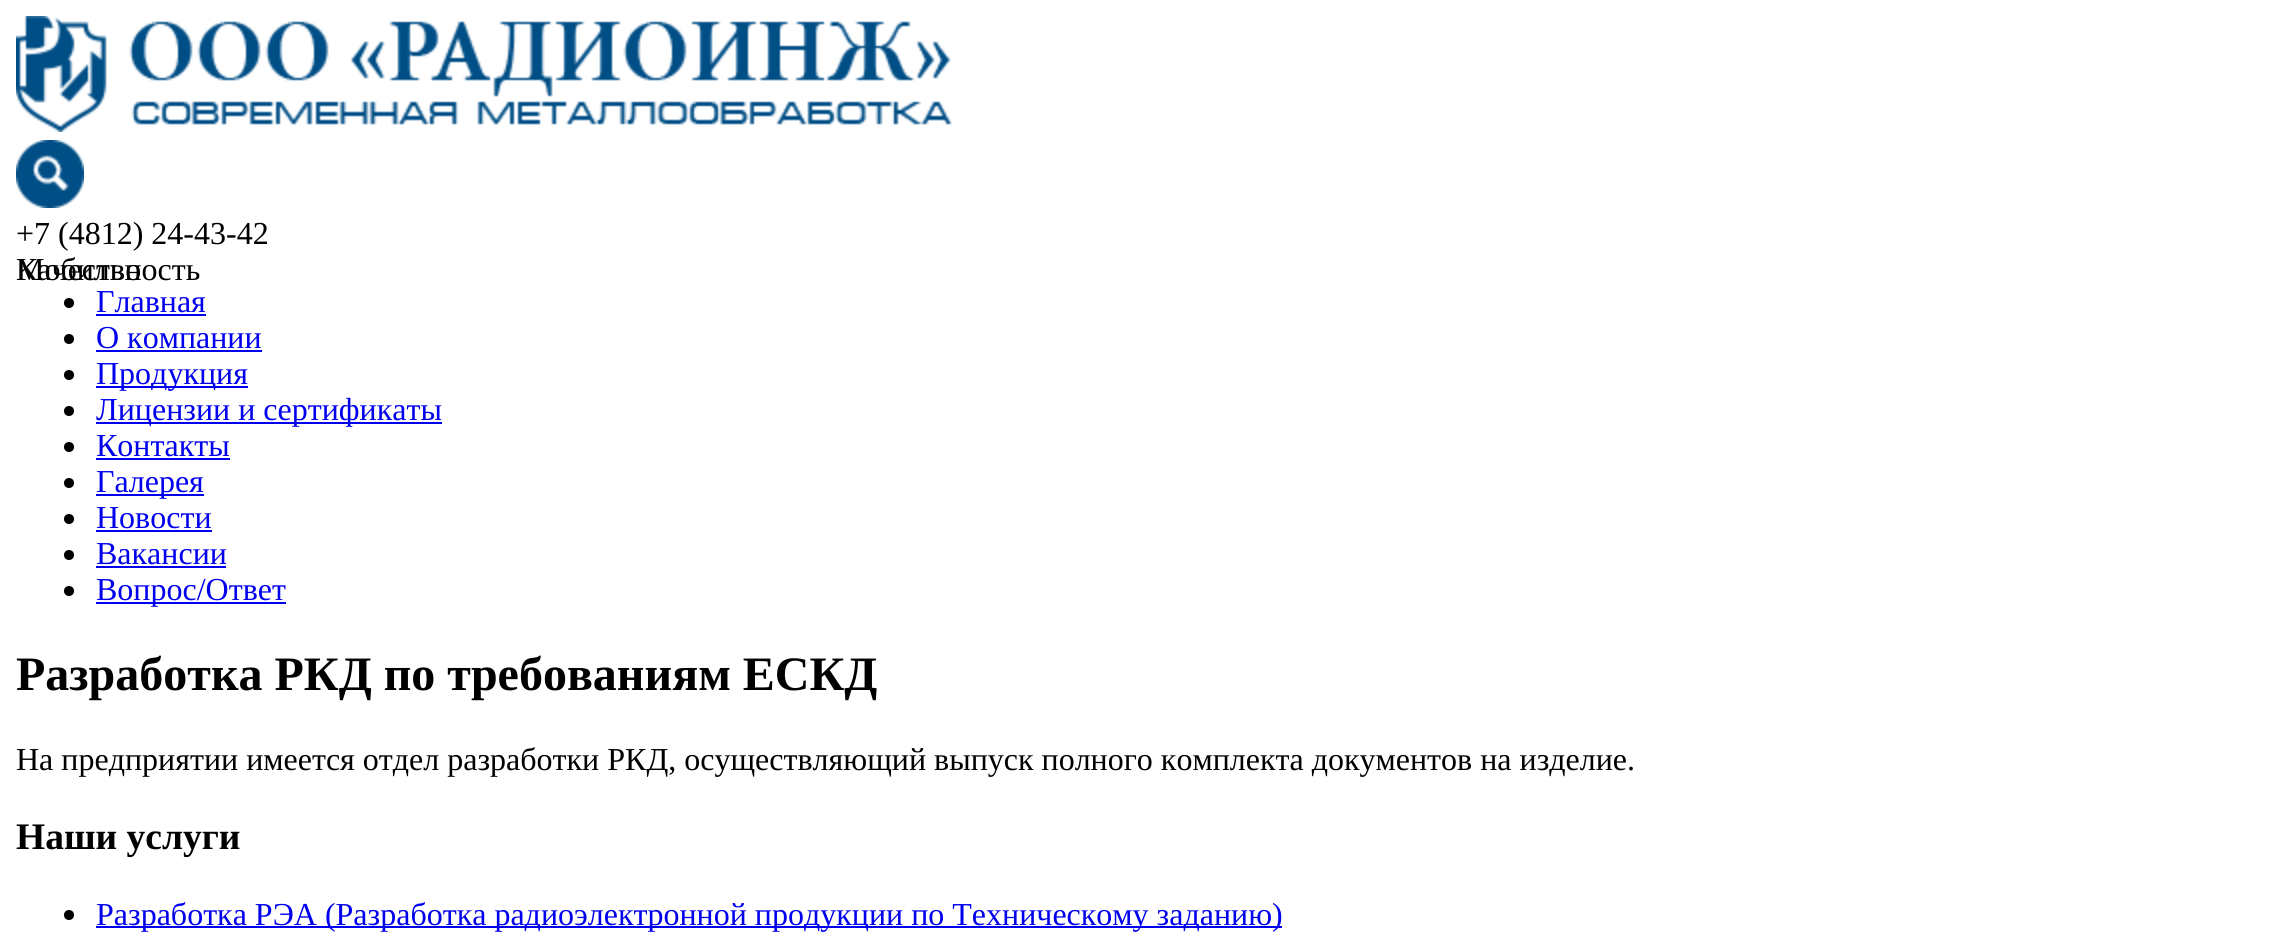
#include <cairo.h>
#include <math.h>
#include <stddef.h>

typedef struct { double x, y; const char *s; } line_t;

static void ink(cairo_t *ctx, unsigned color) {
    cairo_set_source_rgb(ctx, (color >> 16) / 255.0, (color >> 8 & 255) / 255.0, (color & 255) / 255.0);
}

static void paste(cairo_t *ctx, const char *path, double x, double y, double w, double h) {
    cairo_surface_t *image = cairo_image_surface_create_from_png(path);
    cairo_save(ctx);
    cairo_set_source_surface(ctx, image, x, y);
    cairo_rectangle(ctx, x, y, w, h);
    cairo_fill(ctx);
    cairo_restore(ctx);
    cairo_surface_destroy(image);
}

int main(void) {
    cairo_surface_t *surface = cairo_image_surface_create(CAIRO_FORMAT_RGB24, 2282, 942);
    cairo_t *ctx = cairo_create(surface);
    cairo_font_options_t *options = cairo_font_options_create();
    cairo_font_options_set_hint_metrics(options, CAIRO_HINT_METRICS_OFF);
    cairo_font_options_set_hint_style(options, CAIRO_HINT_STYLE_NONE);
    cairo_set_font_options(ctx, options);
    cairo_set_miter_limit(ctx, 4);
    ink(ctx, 0xFFFFFF);
    cairo_paint(ctx);
    paste(ctx, "media/1.png", 16, 16, 936, 116);
    paste(ctx, "media/2.png", 16, 140, 68, 68);
    cairo_select_font_face(ctx, "Liberation Serif", CAIRO_FONT_SLANT_NORMAL, CAIRO_FONT_WEIGHT_NORMAL);
    cairo_set_font_size(ctx, 32);
    ink(ctx, 0x000000);
    {
        static const line_t items[] = {
            {16, 244, "+7 (4812) 24-43-42"},
            {16, 280, "Качество"},
            {16, 280, "Мобильность"},
        };
        for (size_t i = 0; i < sizeof items / sizeof *items; i++) {
            cairo_move_to(ctx, items[i].x, items[i].y);
            cairo_show_text(ctx, items[i].s);
        }
    }
    cairo_new_path(ctx);
    cairo_arc(ctx, 69, 303, 5, 0, 2 * M_PI);
    cairo_fill(ctx);
    ink(ctx, 0x0000EE);
    cairo_move_to(ctx, 96, 312);
    cairo_show_text(ctx, "Главная");
    cairo_rectangle(ctx, 96, 314, 110, 2);
    cairo_fill(ctx);
    ink(ctx, 0x000000);
    cairo_arc(ctx, 69, 339, 5, 0, 2 * M_PI);
    cairo_fill(ctx);
    ink(ctx, 0x0000EE);
    cairo_move_to(ctx, 96, 348);
    cairo_show_text(ctx, "О компании");
    cairo_rectangle(ctx, 96, 350, 166, 2);
    cairo_fill(ctx);
    ink(ctx, 0x000000);
    cairo_arc(ctx, 69, 375, 5, 0, 2 * M_PI);
    cairo_fill(ctx);
    ink(ctx, 0x0000EE);
    cairo_rectangle(ctx, 96, 386, 152, 2);
    cairo_fill(ctx);
    cairo_move_to(ctx, 96, 384);
    cairo_show_text(ctx, "Продукция");
    ink(ctx, 0x000000);
    cairo_new_path(ctx);
    cairo_arc(ctx, 69, 411, 5, 0, 2 * M_PI);
    cairo_fill(ctx);
    ink(ctx, 0x0000EE);
    cairo_rectangle(ctx, 96, 422, 346, 2);
    cairo_fill(ctx);
    cairo_move_to(ctx, 96, 420);
    cairo_show_text(ctx, "Лицензии и сертификаты");
    ink(ctx, 0x000000);
    cairo_new_path(ctx);
    cairo_arc(ctx, 69, 447, 5, 0, 2 * M_PI);
    cairo_fill(ctx);
    ink(ctx, 0x0000EE);
    cairo_move_to(ctx, 96, 456);
    cairo_show_text(ctx, "Контакты");
    cairo_rectangle(ctx, 96, 458, 134, 2);
    cairo_fill(ctx);
    ink(ctx, 0x000000);
    cairo_arc(ctx, 69, 483, 5, 0, 2 * M_PI);
    cairo_fill(ctx);
    ink(ctx, 0x0000EE);
    cairo_rectangle(ctx, 96, 494, 108, 2);
    cairo_fill(ctx);
    cairo_move_to(ctx, 96, 492);
    cairo_show_text(ctx, "Галерея");
    ink(ctx, 0x000000);
    cairo_new_path(ctx);
    cairo_arc(ctx, 69, 519, 5, 0, 2 * M_PI);
    cairo_fill(ctx);
    ink(ctx, 0x0000EE);
    cairo_move_to(ctx, 96, 528);
    cairo_show_text(ctx, "Новости");
    cairo_rectangle(ctx, 96, 530, 116, 2);
    cairo_fill(ctx);
    ink(ctx, 0x000000);
    cairo_arc(ctx, 69, 555, 5, 0, 2 * M_PI);
    cairo_fill(ctx);
    ink(ctx, 0x0000EE);
    cairo_move_to(ctx, 96, 564);
    cairo_show_text(ctx, "Вакансии");
    cairo_rectangle(ctx, 96, 566, 130, 2);
    cairo_fill(ctx);
    ink(ctx, 0x000000);
    cairo_arc(ctx, 69, 591, 5, 0, 2 * M_PI);
    cairo_fill(ctx);
    ink(ctx, 0x0000EE);
    cairo_rectangle(ctx, 96, 602, 190, 2);
    cairo_fill(ctx);
    cairo_move_to(ctx, 96, 600);
    cairo_show_text(ctx, "Вопрос/Ответ");
    cairo_select_font_face(ctx, "Liberation Serif", CAIRO_FONT_SLANT_NORMAL, CAIRO_FONT_WEIGHT_BOLD);
    cairo_set_font_size(ctx, 48);
    ink(ctx, 0x000000);
    cairo_move_to(ctx, 16, 690);
    cairo_show_text(ctx, "Разработка РКД по требованиям ЕСКД");
    cairo_select_font_face(ctx, "Liberation Serif", CAIRO_FONT_SLANT_NORMAL, CAIRO_FONT_WEIGHT_NORMAL);
    cairo_set_font_size(ctx, 32);
    cairo_move_to(ctx, 16, 770);
    cairo_show_text(ctx, "На предприятии имеется отдел разработки РКД, осуществляющий выпуск полного комплекта документов на изделие.");
    cairo_select_font_face(ctx, "Liberation Serif", CAIRO_FONT_SLANT_NORMAL, CAIRO_FONT_WEIGHT_BOLD);
    cairo_set_font_size(ctx, 37.5);
    cairo_move_to(ctx, 16, 849);
    cairo_show_text(ctx, "Наши услуги");
    cairo_new_path(ctx);
    cairo_arc(ctx, 69, 915, 5, 0, 2 * M_PI);
    cairo_fill(ctx);
    ink(ctx, 0x0000EE);
    cairo_rectangle(ctx, 96, 926, 1186, 2);
    cairo_fill(ctx);
    cairo_select_font_face(ctx, "Liberation Serif", CAIRO_FONT_SLANT_NORMAL, CAIRO_FONT_WEIGHT_NORMAL);
    cairo_set_font_size(ctx, 32);
    cairo_move_to(ctx, 96, 925);
    cairo_show_text(ctx, "Разработка РЭА (Разработка радиоэлектронной продукции по Техническому заданию)");
    cairo_surface_write_to_png(surface, "image.png");
    cairo_font_options_destroy(options);
    cairo_destroy(ctx);
    cairo_surface_destroy(surface);
    return 0;
}
